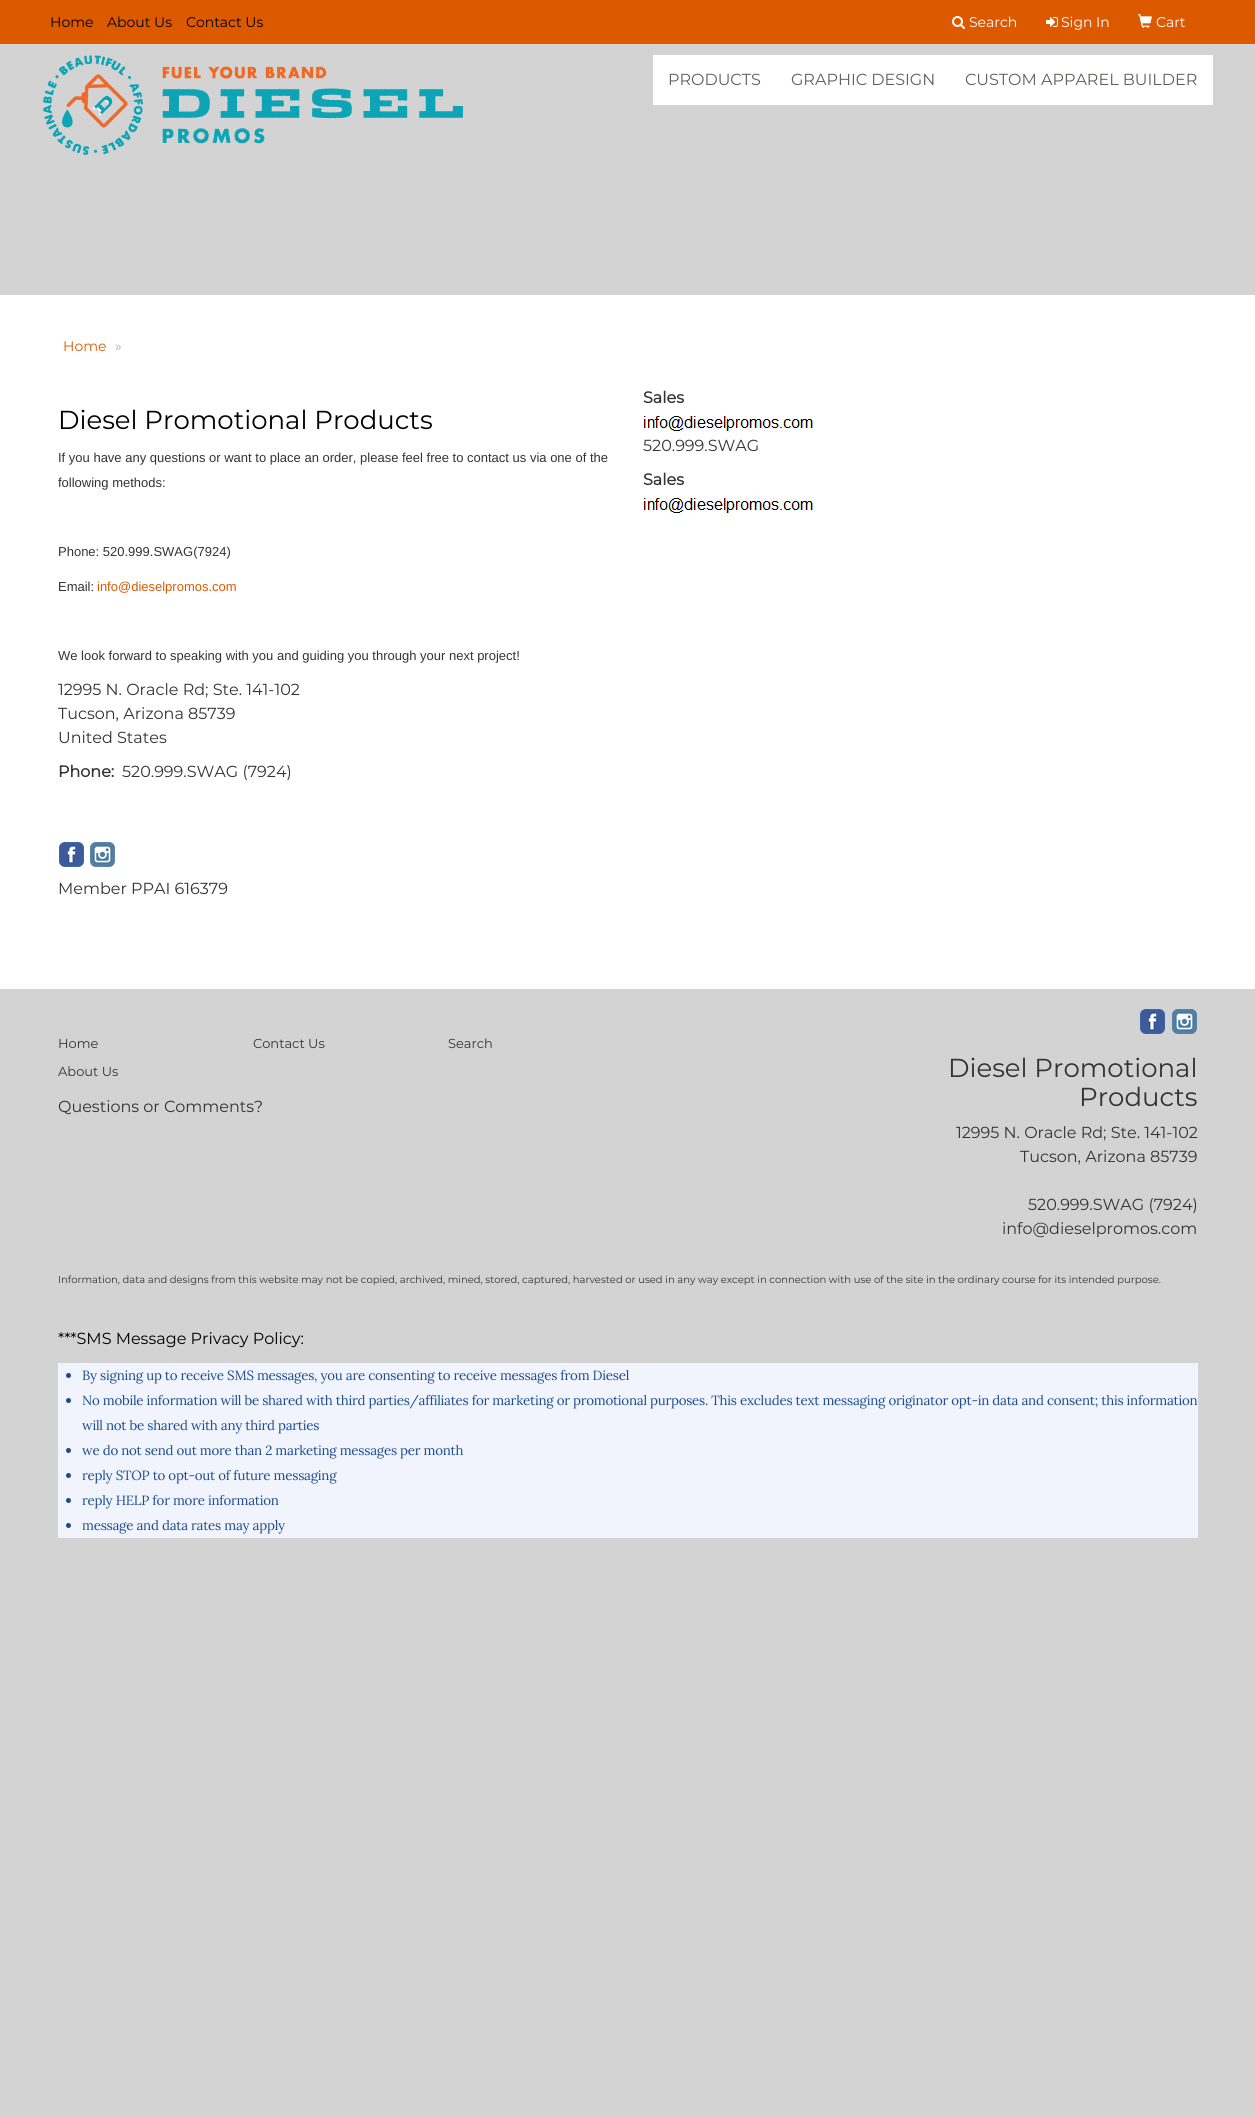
#include <cairo.h>
#include <math.h>
#include <stddef.h>

typedef struct { double x, y; const char *s; } line_t;

static void ink(cairo_t *ctx, unsigned color) {
    cairo_set_source_rgb(ctx, (color >> 16) / 255.0, (color >> 8 & 255) / 255.0, (color & 255) / 255.0);
}

static void write_spaced(cairo_t *ctx, double x, double y, const char *s, double letter, double word) {
    cairo_move_to(ctx, x, y);
    while (*s) {
        char ch[5] = {0};
        int n = 0;
        do ch[n++] = *s++; while ((*s & 0xC0) == 0x80);
        cairo_show_text(ctx, ch);
        cairo_rel_move_to(ctx, letter + word * (*ch == ' '), 0);
    }
}

static void paste(cairo_t *ctx, const char *path, double x, double y, double w, double h) {
    cairo_surface_t *image = cairo_image_surface_create_from_png(path);
    cairo_save(ctx);
    cairo_set_source_surface(ctx, image, x, y);
    cairo_rectangle(ctx, x, y, w, h);
    cairo_fill(ctx);
    cairo_restore(ctx);
    cairo_surface_destroy(image);
}

int main(void) {
    cairo_surface_t *surface = cairo_image_surface_create(CAIRO_FORMAT_RGB24, 1255, 2117);
    cairo_t *ctx = cairo_create(surface);
    cairo_font_options_t *options = cairo_font_options_create();
    cairo_font_options_set_hint_metrics(options, CAIRO_HINT_METRICS_OFF);
    cairo_font_options_set_hint_style(options, CAIRO_HINT_STYLE_NONE);
    cairo_set_font_options(ctx, options);
    cairo_set_miter_limit(ctx, 4);
    ink(ctx, 0xD3D3D3);
    cairo_paint(ctx);
    ink(ctx, 0xDD5900);
    cairo_rectangle(ctx, 0, 0, 1255, 44);
    cairo_fill(ctx);
    cairo_select_font_face(ctx, "Montserrat Thin", CAIRO_FONT_SLANT_NORMAL, CAIRO_FONT_WEIGHT_NORMAL);
    cairo_set_font_size(ctx, 14);
    ink(ctx, 0x000000);
    {
        static const line_t items[] = {
            {50, 27, "Home"},
            {107, 27, "About Us"},
            {186, 27, "Contact Us"},
        };
        for (size_t i = 0; i < sizeof items / sizeof *items; i++) {
            cairo_move_to(ctx, items[i].x, items[i].y);
            cairo_show_text(ctx, items[i].s);
        }
    }
    paste(ctx, "media/1.png", 952, 16, 13, 13);
    ink(ctx, 0xFFFFFF);
    cairo_move_to(ctx, 969, 27);
    cairo_show_text(ctx, "Search");
    paste(ctx, "media/2.png", 1046, 17, 12, 10);
    cairo_move_to(ctx, 1061, 27);
    cairo_show_text(ctx, "Sign In");
    paste(ctx, "media/3.png", 1138, 14, 14, 14);
    cairo_move_to(ctx, 1156, 27);
    cairo_show_text(ctx, "Cart");
    paste(ctx, "media/4.png", 43, 55, 420, 100);
    cairo_rectangle(ctx, 653, 55, 560, 50);
    cairo_fill(ctx);
    cairo_set_font_size(ctx, 16);
    ink(ctx, 0x60605B);
    {
        static const line_t items[] = {
            {668, 85, "PRODUCTS"},
            {791, 85, "GRAPHIC DESIGN"},
            {965, 85, "CUSTOM APPAREL BUILDER"},
        };
        for (size_t i = 0; i < sizeof items / sizeof *items; i++) {
            cairo_move_to(ctx, items[i].x, items[i].y);
            cairo_show_text(ctx, items[i].s);
        }
    }
    ink(ctx, 0xFFFFFF);
    cairo_rectangle(ctx, 0, 295, 1255, 694);
    cairo_fill(ctx);
    cairo_set_font_size(ctx, 14);
    ink(ctx, 0xDD5900);
    cairo_move_to(ctx, 63, 351);
    cairo_show_text(ctx, "Home");
    ink(ctx, 0xB2B1B1);
    cairo_move_to(ctx, 115, 351);
    cairo_show_text(ctx, "»");
    cairo_set_font_size(ctx, 26);
    ink(ctx, 0x000000);
    cairo_move_to(ctx, 58, 429);
    cairo_show_text(ctx, "Diesel Promotional Products");
    cairo_select_font_face(ctx, "Liberation Sans", CAIRO_FONT_SLANT_NORMAL, CAIRO_FONT_WEIGHT_NORMAL);
    cairo_set_font_size(ctx, 13);
    ink(ctx, 0x333333);
    {
        static const line_t items[] = {
            {58, 462, "If you have any questions or want to place an order, please feel free to contact us via one of the"},
            {58, 487, "following methods:"},
            {58, 556, "Phone: 520.999.SWAG(7924)"},
            {58, 591, "Email:"},
        };
        for (size_t i = 0; i < sizeof items / sizeof *items; i++) {
            cairo_move_to(ctx, items[i].x, items[i].y);
            cairo_show_text(ctx, items[i].s);
        }
    }
    ink(ctx, 0xDD5900);
    cairo_move_to(ctx, 97, 591);
    cairo_show_text(ctx, "info@dieselpromos.com");
    ink(ctx, 0x333333);
    cairo_move_to(ctx, 58, 660);
    cairo_show_text(ctx, "We look forward to speaking with you and guiding you through your next project!");
    cairo_select_font_face(ctx, "Montserrat Thin", CAIRO_FONT_SLANT_NORMAL, CAIRO_FONT_WEIGHT_NORMAL);
    cairo_set_font_size(ctx, 16);
    {
        static const line_t items[] = {
            {58, 695, "12995 N. Oracle Rd; Ste. 141-102"},
            {58, 719, "Tucson, Arizona 85739"},
            {58, 743, "United States"},
        };
        for (size_t i = 0; i < sizeof items / sizeof *items; i++) {
            cairo_move_to(ctx, items[i].x, items[i].y);
            cairo_show_text(ctx, items[i].s);
        }
    }
    cairo_select_font_face(ctx, "Montserrat", CAIRO_FONT_SLANT_NORMAL, CAIRO_FONT_WEIGHT_BOLD);
    cairo_move_to(ctx, 58, 777);
    cairo_show_text(ctx, "Phone:");
    cairo_select_font_face(ctx, "Montserrat Thin", CAIRO_FONT_SLANT_NORMAL, CAIRO_FONT_WEIGHT_NORMAL);
    cairo_move_to(ctx, 122, 777);
    cairo_show_text(ctx, "520.999.SWAG (7924)");
    paste(ctx, "media/5.png", 59, 842, 25, 25);
    paste(ctx, "media/6.png", 90, 842, 25, 25);
    cairo_move_to(ctx, 58, 894);
    cairo_show_text(ctx, "Member PPAI 616379");
    cairo_select_font_face(ctx, "Montserrat", CAIRO_FONT_SLANT_NORMAL, CAIRO_FONT_WEIGHT_BOLD);
    cairo_move_to(ctx, 643, 403);
    cairo_show_text(ctx, "Sales");
    paste(ctx, "media/7.png", 643, 416, 170, 15);
    cairo_select_font_face(ctx, "Montserrat Thin", CAIRO_FONT_SLANT_NORMAL, CAIRO_FONT_WEIGHT_NORMAL);
    cairo_move_to(ctx, 643, 451);
    cairo_show_text(ctx, "520.999.SWAG");
    cairo_select_font_face(ctx, "Montserrat", CAIRO_FONT_SLANT_NORMAL, CAIRO_FONT_WEIGHT_BOLD);
    cairo_move_to(ctx, 643, 485);
    cairo_show_text(ctx, "Sales");
    paste(ctx, "media/7.png", 643, 498, 170, 15);
    cairo_select_font_face(ctx, "Montserrat Thin", CAIRO_FONT_SLANT_NORMAL, CAIRO_FONT_WEIGHT_NORMAL);
    cairo_set_font_size(ctx, 13);
    {
        static const line_t items[] = {
            {58, 1048, "Home"},
            {58, 1076, "About Us"},
            {253, 1048, "Contact Us"},
            {448, 1048, "Search"},
        };
        for (size_t i = 0; i < sizeof items / sizeof *items; i++) {
            cairo_move_to(ctx, items[i].x, items[i].y);
            cairo_show_text(ctx, items[i].s);
        }
    }
    cairo_set_font_size(ctx, 16);
    cairo_move_to(ctx, 58, 1112);
    cairo_show_text(ctx, "Questions or Comments?");
    paste(ctx, "media/8.png", 1140, 1009, 25, 25);
    paste(ctx, "media/9.png", 1172, 1009, 25, 25);
    cairo_set_font_size(ctx, 26);
    cairo_move_to(ctx, 948, 1077);
    cairo_show_text(ctx, "Diesel Promotional");
    cairo_move_to(ctx, 1079, 1106);
    cairo_show_text(ctx, "Products");
    cairo_set_font_size(ctx, 16);
    {
        static const line_t items[] = {
            {956, 1138, "12995 N. Oracle Rd; Ste. 141-102"},
            {1020, 1162, "Tucson, Arizona 85739"},
            {1028, 1210, "520.999.SWAG (7924)"},
            {1002, 1234, "info@dieselpromos.com"},
        };
        for (size_t i = 0; i < sizeof items / sizeof *items; i++) {
            cairo_move_to(ctx, items[i].x, items[i].y);
            cairo_show_text(ctx, items[i].s);
        }
    }
    cairo_set_font_size(ctx, 10);
    cairo_move_to(ctx, 58, 1283);
    cairo_show_text(ctx, "Information, data and designs from this website may not be copied, archived, mined, stored, captured, harvested or used in any way except in connection with use of the site in the ordinary course for its intended purpose.");
    cairo_set_font_size(ctx, 16);
    ink(ctx, 0x000000);
    cairo_move_to(ctx, 58, 1344);
    cairo_show_text(ctx, "***SMS Message Privacy Policy:");
    ink(ctx, 0xF2F4FD);
    cairo_rectangle(ctx, 58, 1363, 1140, 175);
    cairo_fill(ctx);
    ink(ctx, 0x1A4D8F);
    cairo_arc(ctx, 68.5, 1375.5, 2.5, 0, 2 * M_PI);
    cairo_fill(ctx);
    cairo_select_font_face(ctx, "Lora", CAIRO_FONT_SLANT_NORMAL, CAIRO_FONT_WEIGHT_NORMAL);
    cairo_set_font_size(ctx, 13.33);
    write_spaced(ctx, 82, 1380, "By signing up to receive SMS messages, you are consenting to receive messages from Diesel", -0.25, 0);
    cairo_new_path(ctx);
    cairo_arc(ctx, 68.5, 1400.5, 2.5, 0, 2 * M_PI);
    cairo_fill(ctx);
    write_spaced(ctx, 82, 1405, "No mobile information will be shared with third parties/affiliates for marketing or promotional purposes. This excludes text messaging originator opt-in data and consent; this information", -0.25, 0);
    write_spaced(ctx, 82, 1430, "will not be shared with any third parties", -0.25, 0);
    cairo_new_path(ctx);
    cairo_arc(ctx, 68.5, 1450.5, 2.5, 0, 2 * M_PI);
    cairo_fill(ctx);
    write_spaced(ctx, 82, 1455, "we do not send out more than 2 marketing messages per month", -0.25, 0);
    cairo_new_path(ctx);
    cairo_arc(ctx, 68.5, 1475.5, 2.5, 0, 2 * M_PI);
    cairo_fill(ctx);
    write_spaced(ctx, 82, 1480, "reply STOP to opt-out of future messaging", -0.25, 0);
    cairo_new_path(ctx);
    cairo_arc(ctx, 68.5, 1500.5, 2.5, 0, 2 * M_PI);
    cairo_fill(ctx);
    write_spaced(ctx, 82, 1505, "reply HELP for more information", -0.25, 0);
    cairo_new_path(ctx);
    cairo_arc(ctx, 68.5, 1525.5, 2.5, 0, 2 * M_PI);
    cairo_fill(ctx);
    write_spaced(ctx, 82, 1530, "message and data rates may apply", -0.25, 0);
    cairo_surface_write_to_png(surface, "image.png");
    cairo_font_options_destroy(options);
    cairo_destroy(ctx);
    cairo_surface_destroy(surface);
    return 0;
}
